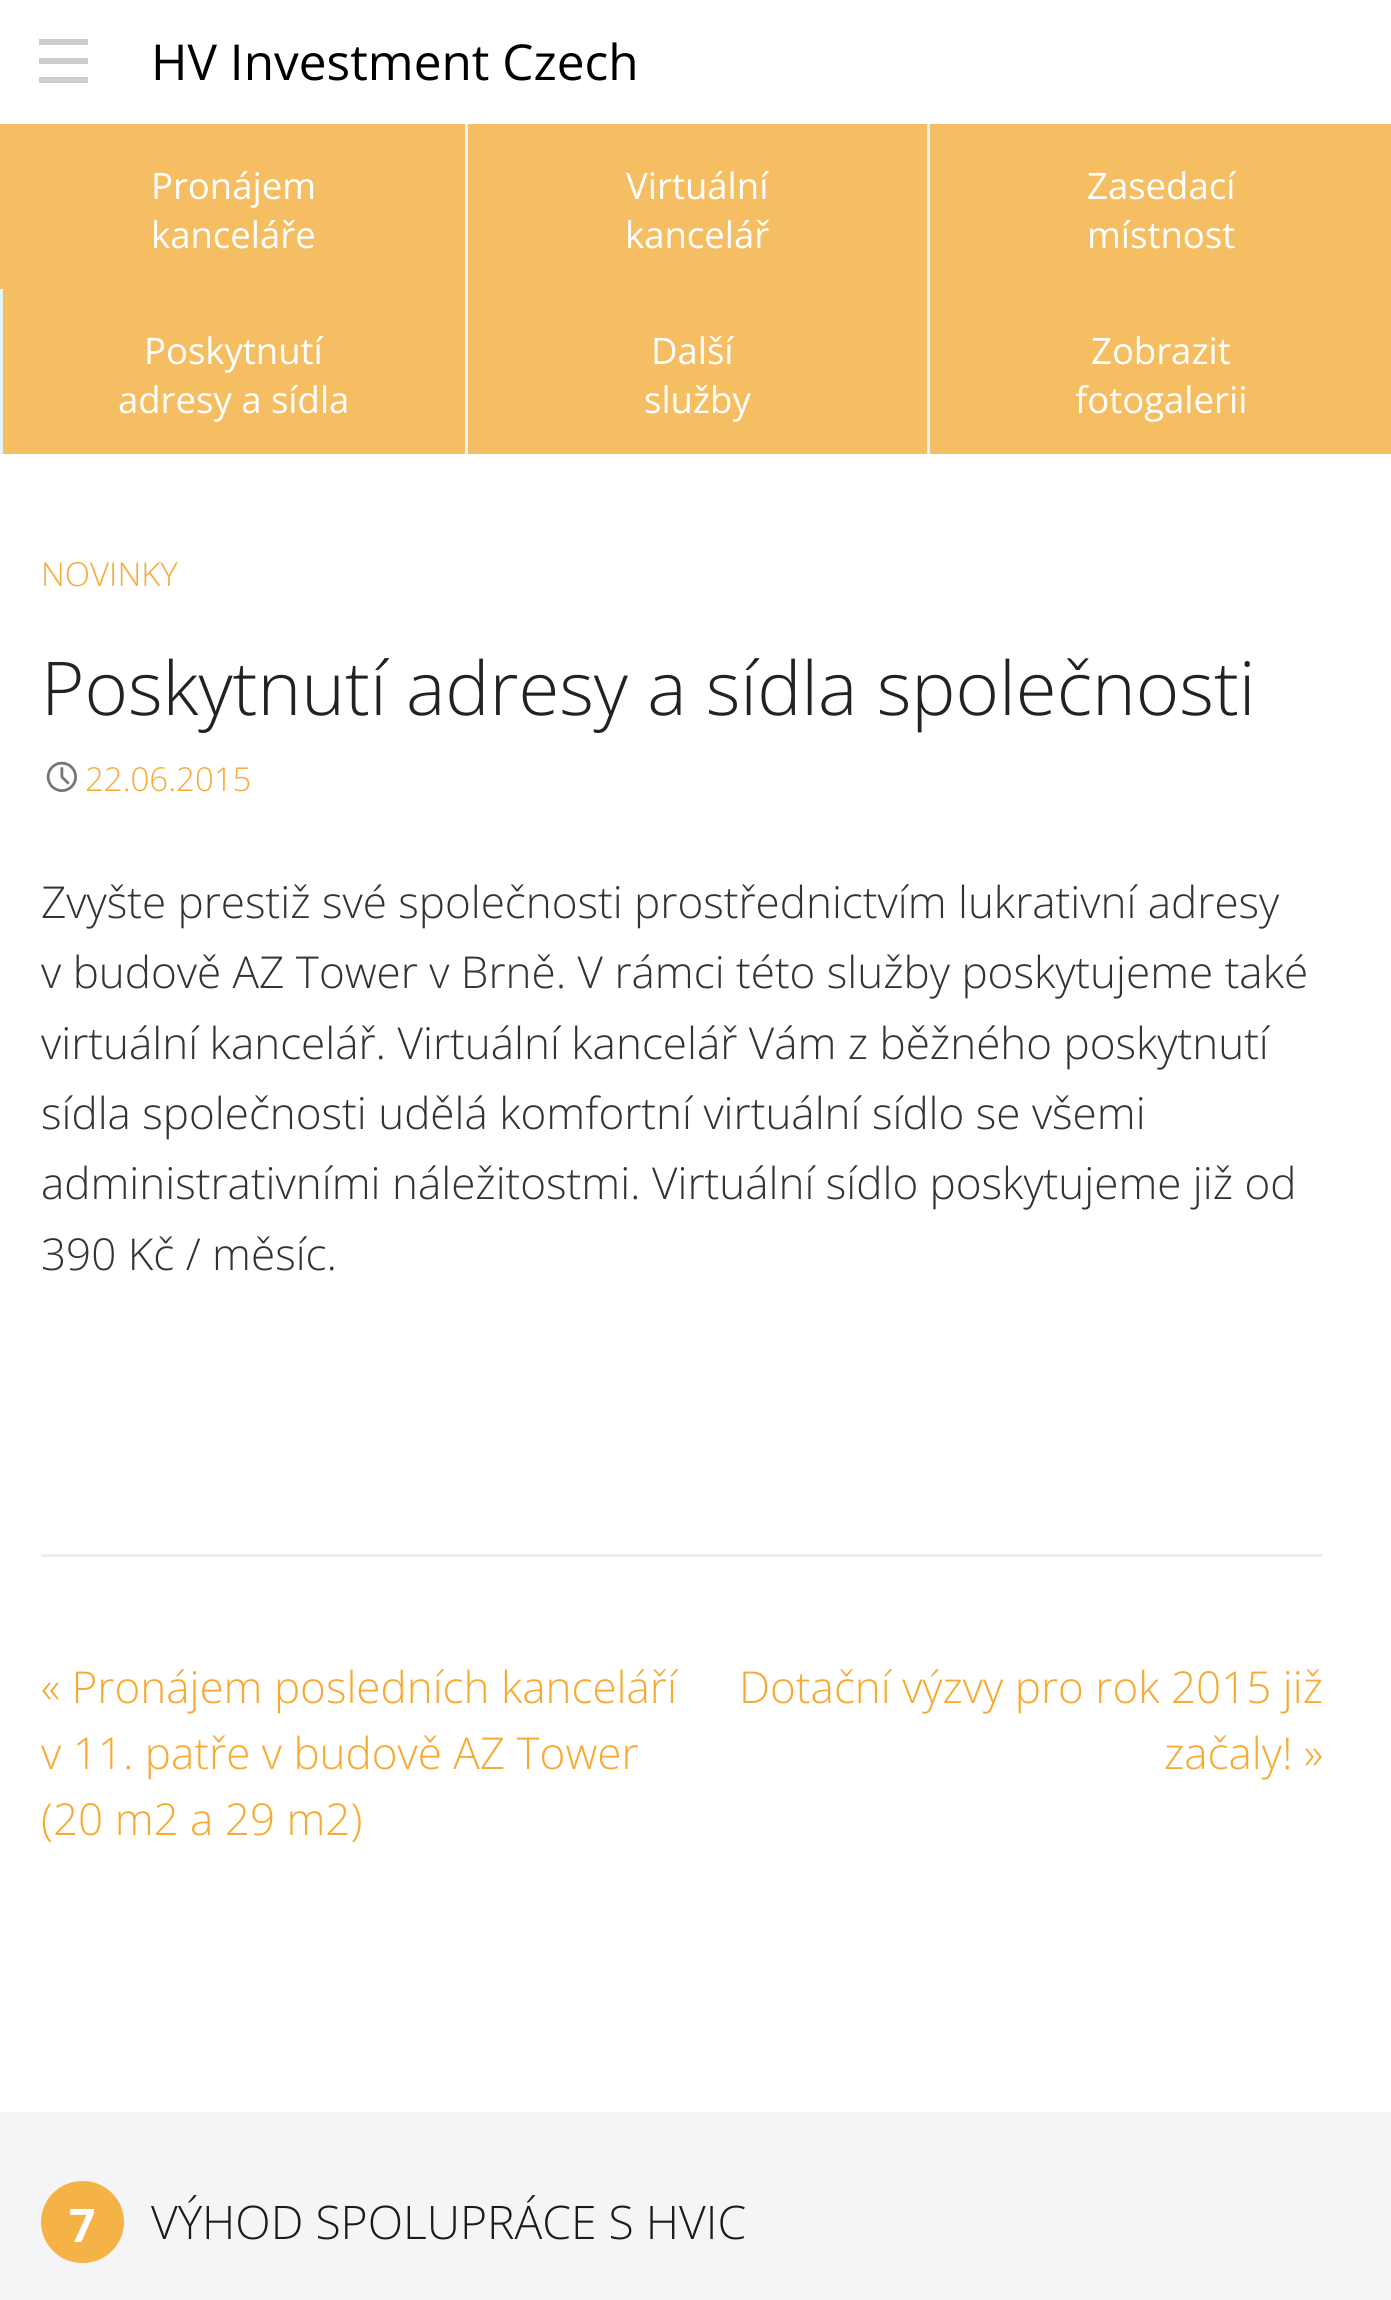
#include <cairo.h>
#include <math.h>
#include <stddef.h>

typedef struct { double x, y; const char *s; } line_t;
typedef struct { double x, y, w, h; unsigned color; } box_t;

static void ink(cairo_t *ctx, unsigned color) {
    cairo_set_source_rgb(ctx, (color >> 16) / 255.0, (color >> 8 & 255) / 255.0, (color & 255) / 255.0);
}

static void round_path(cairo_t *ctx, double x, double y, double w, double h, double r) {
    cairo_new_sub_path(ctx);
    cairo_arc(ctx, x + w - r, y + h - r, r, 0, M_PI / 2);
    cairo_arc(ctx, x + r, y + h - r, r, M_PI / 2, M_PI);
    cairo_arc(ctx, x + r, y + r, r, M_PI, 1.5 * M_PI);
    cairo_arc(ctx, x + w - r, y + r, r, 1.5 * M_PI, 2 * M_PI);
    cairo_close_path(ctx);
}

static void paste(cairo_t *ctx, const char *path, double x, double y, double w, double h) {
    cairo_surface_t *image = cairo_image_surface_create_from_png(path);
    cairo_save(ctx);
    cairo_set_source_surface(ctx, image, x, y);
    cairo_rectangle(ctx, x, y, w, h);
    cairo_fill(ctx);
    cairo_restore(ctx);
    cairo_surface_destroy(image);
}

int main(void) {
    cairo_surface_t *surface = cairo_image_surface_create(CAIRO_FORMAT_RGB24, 1391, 2300);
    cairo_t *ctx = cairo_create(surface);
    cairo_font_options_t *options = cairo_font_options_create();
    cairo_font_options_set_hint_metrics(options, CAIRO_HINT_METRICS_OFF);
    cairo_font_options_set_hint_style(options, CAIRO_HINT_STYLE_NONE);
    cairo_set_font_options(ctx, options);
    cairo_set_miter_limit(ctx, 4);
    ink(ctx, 0xFFFFFF);
    cairo_paint(ctx);
    {
        static const box_t items[] = {
            {39, 77, 49, 6, 0xCCCCCC},
            {39, 58, 49, 6, 0xCCCCCC},
            {39, 39, 49, 6, 0xCCCCCC},
        };
        for (size_t i = 0; i < sizeof items / sizeof *items; i++) {
            ink(ctx, items[i].color);
            cairo_rectangle(ctx, items[i].x, items[i].y, items[i].w, items[i].h);
            cairo_fill(ctx);
        }
    }
    cairo_select_font_face(ctx, "Open Sans", CAIRO_FONT_SLANT_NORMAL, CAIRO_FONT_WEIGHT_NORMAL);
    cairo_set_font_size(ctx, 49.5);
    ink(ctx, 0x000000);
    cairo_move_to(ctx, 151, 80);
    cairo_show_text(ctx, "HV Investment Czech");
    ink(ctx, 0xF6BE63);
    cairo_rectangle(ctx, 0, 124, 1391, 330);
    cairo_fill(ctx);
    cairo_set_font_size(ctx, 36.5);
    ink(ctx, 0xFFFFFF);
    cairo_move_to(ctx, 151, 199);
    cairo_show_text(ctx, "Pronájem");
    cairo_move_to(ctx, 151, 248);
    cairo_show_text(ctx, "kanceláře");
    ink(ctx, 0xE6F2FA);
    cairo_rectangle(ctx, 465, 124, 3, 330);
    cairo_fill(ctx);
    ink(ctx, 0xFFFFFF);
    cairo_move_to(ctx, 626, 199);
    cairo_show_text(ctx, "Virtuální");
    cairo_move_to(ctx, 625, 248);
    cairo_show_text(ctx, "kancelář");
    ink(ctx, 0xE6F2FA);
    cairo_rectangle(ctx, 927, 124, 3, 330);
    cairo_fill(ctx);
    ink(ctx, 0xFFFFFF);
    cairo_move_to(ctx, 1087, 199);
    cairo_show_text(ctx, "Zasedací");
    cairo_move_to(ctx, 1087, 248);
    cairo_show_text(ctx, "místnost");
    ink(ctx, 0xE6F2FA);
    cairo_rectangle(ctx, 0, 289, 3, 165);
    cairo_fill(ctx);
    ink(ctx, 0xFFFFFF);
    {
        static const line_t items[] = {
            {144, 364, "Poskytnutí"},
            {118, 413, "adresy a sídla"},
            {651, 364, "Další"},
            {644, 413, "služby"},
            {1091, 364, "Zobrazit"},
            {1075, 413, "fotogalerii"},
        };
        for (size_t i = 0; i < sizeof items / sizeof *items; i++) {
            cairo_move_to(ctx, items[i].x, items[i].y);
            cairo_show_text(ctx, items[i].s);
        }
    }
    ink(ctx, 0xEDEDED);
    cairo_rectangle(ctx, 41, 1554, 1282, 3);
    cairo_fill(ctx);
    cairo_select_font_face(ctx, "Open Sans Light", CAIRO_FONT_SLANT_NORMAL, CAIRO_FONT_WEIGHT_NORMAL);
    cairo_set_font_size(ctx, 33);
    ink(ctx, 0xF7A932);
    cairo_move_to(ctx, 41, 586);
    cairo_show_text(ctx, "NOVINKY");
    cairo_set_font_size(ctx, 74.25);
    ink(ctx, 0x222222);
    cairo_move_to(ctx, 41, 715);
    cairo_show_text(ctx, "Poskytnutí adresy a sídla společnosti");
    paste(ctx, "media/1.png", 46, 761, 31, 31);
    cairo_set_font_size(ctx, 33);
    ink(ctx, 0xF7A932);
    cairo_move_to(ctx, 85, 791);
    cairo_show_text(ctx, "22.06.2015");
    cairo_set_font_size(ctx, 44);
    ink(ctx, 0x333333);
    {
        static const line_t items[] = {
            {41, 918, "Zvyšte prestiž své společnosti prostřednictvím lukrativní adresy"},
            {41, 988, "v budově AZ Tower v Brně. V rámci této služby poskytujeme také"},
            {41, 1059, "virtuální kancelář. Virtuální kancelář Vám z běžného poskytnutí"},
            {41, 1129, "sídla společnosti udělá komfortní virtuální sídlo se všemi"},
            {41, 1199, "administrativními náležitostmi. Virtuální sídlo poskytujeme již od"},
            {41, 1270, "390 Kč / měsíc."},
        };
        for (size_t i = 0; i < sizeof items / sizeof *items; i++) {
            cairo_move_to(ctx, items[i].x, items[i].y);
            cairo_show_text(ctx, items[i].s);
        }
    }
    ink(ctx, 0xF7A932);
    {
        static const line_t items[] = {
            {41, 1703, "« Pronájem posledních kanceláří"},
            {41, 1769, "v 11. patře v budově AZ Tower"},
            {41, 1835, "(20 m2 a 29 m2)"},
            {739, 1703, "Dotační výzvy pro rok 2015 již"},
            {1164, 1769, "začaly! »"},
        };
        for (size_t i = 0; i < sizeof items / sizeof *items; i++) {
            cairo_move_to(ctx, items[i].x, items[i].y);
            cairo_show_text(ctx, items[i].s);
        }
    }
    ink(ctx, 0xF5F5F7);
    cairo_rectangle(ctx, 0, 2112, 1391, 188);
    cairo_fill(ctx);
    ink(ctx, 0xF4B247);
    round_path(ctx, 41, 2181, 83, 82, 41);
    cairo_fill(ctx);
    cairo_select_font_face(ctx, "Open Sans", CAIRO_FONT_SLANT_NORMAL, CAIRO_FONT_WEIGHT_BOLD);
    cairo_set_font_size(ctx, 46.25);
    ink(ctx, 0xFFFFFF);
    cairo_move_to(ctx, 69, 2242);
    cairo_show_text(ctx, "7");
    cairo_select_font_face(ctx, "Open Sans Light", CAIRO_FONT_SLANT_NORMAL, CAIRO_FONT_WEIGHT_NORMAL);
    ink(ctx, 0x1B1B1B);
    cairo_move_to(ctx, 151, 2239);
    cairo_show_text(ctx, "VÝHOD SPOLUPRÁCE S HVIC");
    cairo_surface_write_to_png(surface, "image.png");
    cairo_font_options_destroy(options);
    cairo_destroy(ctx);
    cairo_surface_destroy(surface);
    return 0;
}
